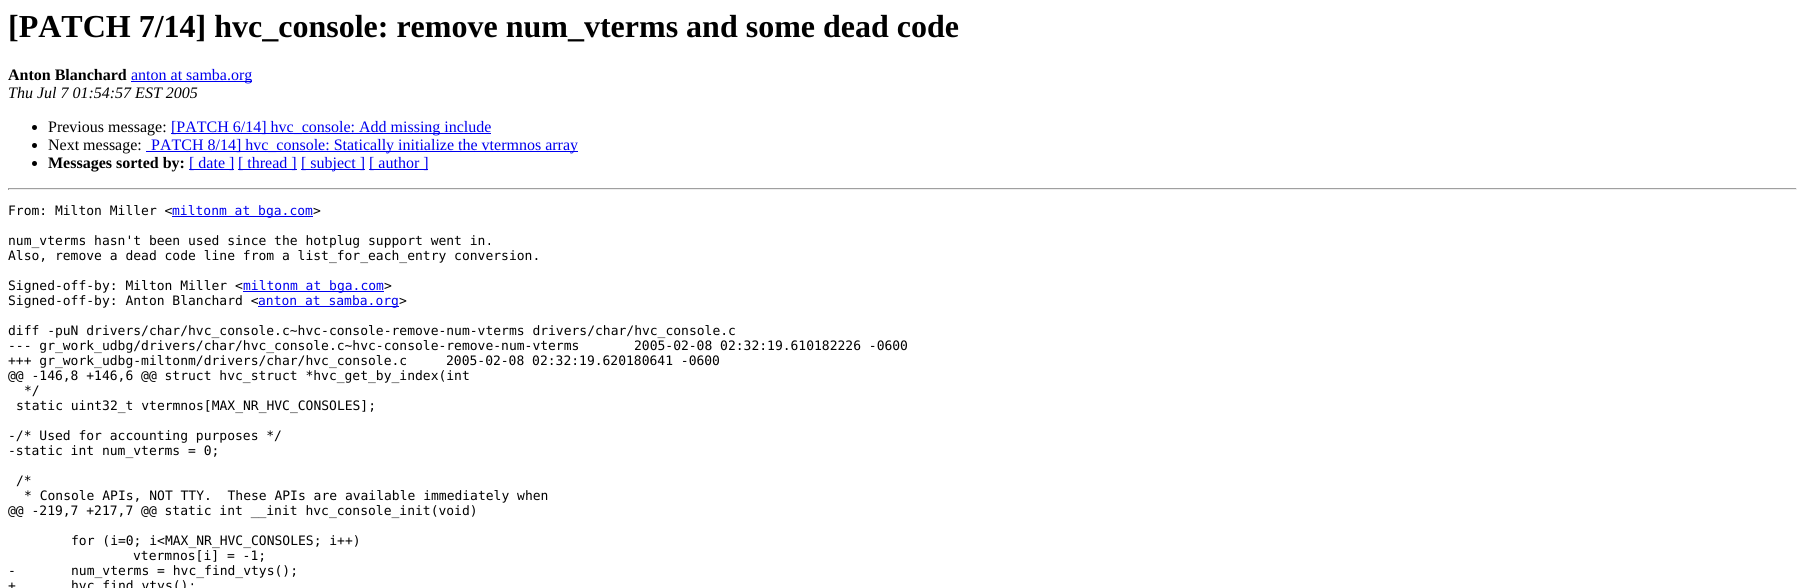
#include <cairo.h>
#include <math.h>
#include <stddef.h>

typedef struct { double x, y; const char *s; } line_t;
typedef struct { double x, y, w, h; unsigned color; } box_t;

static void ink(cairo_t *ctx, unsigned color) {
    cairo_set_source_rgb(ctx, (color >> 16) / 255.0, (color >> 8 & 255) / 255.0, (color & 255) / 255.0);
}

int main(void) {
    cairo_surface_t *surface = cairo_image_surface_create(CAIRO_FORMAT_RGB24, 1805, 588);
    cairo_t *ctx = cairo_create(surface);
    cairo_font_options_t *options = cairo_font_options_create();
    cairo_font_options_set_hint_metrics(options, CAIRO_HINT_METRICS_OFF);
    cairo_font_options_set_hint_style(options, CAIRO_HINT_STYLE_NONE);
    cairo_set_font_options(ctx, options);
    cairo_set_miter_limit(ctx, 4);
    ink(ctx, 0xFFFFFF);
    cairo_paint(ctx);
    cairo_select_font_face(ctx, "Liberation Serif", CAIRO_FONT_SLANT_NORMAL, CAIRO_FONT_WEIGHT_BOLD);
    cairo_set_font_size(ctx, 32);
    ink(ctx, 0x000000);
    cairo_move_to(ctx, 8, 37);
    cairo_show_text(ctx, "[PATCH 7/14] hvc_console: remove num_vterms and some dead code");
    cairo_set_font_size(ctx, 16);
    cairo_move_to(ctx, 8, 80);
    cairo_show_text(ctx, "Anton Blanchard");
    ink(ctx, 0x0000EE);
    cairo_rectangle(ctx, 131, 81, 121, 1);
    cairo_fill(ctx);
    cairo_select_font_face(ctx, "Liberation Serif", CAIRO_FONT_SLANT_NORMAL, CAIRO_FONT_WEIGHT_NORMAL);
    cairo_move_to(ctx, 131, 80);
    cairo_show_text(ctx, "anton at samba.org");
    cairo_select_font_face(ctx, "Liberation Serif", CAIRO_FONT_SLANT_ITALIC, CAIRO_FONT_WEIGHT_NORMAL);
    ink(ctx, 0x000000);
    cairo_move_to(ctx, 8, 98);
    cairo_show_text(ctx, "Thu Jul 7 01:54:57 EST 2005");
    cairo_new_path(ctx);
    cairo_arc(ctx, 34.5, 127.5, 2.5, 0, 2 * M_PI);
    cairo_fill(ctx);
    cairo_select_font_face(ctx, "Liberation Serif", CAIRO_FONT_SLANT_NORMAL, CAIRO_FONT_WEIGHT_NORMAL);
    cairo_move_to(ctx, 48, 132);
    cairo_show_text(ctx, "Previous message:");
    ink(ctx, 0x0000EE);
    cairo_rectangle(ctx, 171, 133, 320, 1);
    cairo_fill(ctx);
    cairo_move_to(ctx, 171, 132);
    cairo_show_text(ctx, "[PATCH 6/14] hvc_console: Add missing include");
    ink(ctx, 0x000000);
    cairo_new_path(ctx);
    cairo_arc(ctx, 34.5, 145.5, 2.5, 0, 2 * M_PI);
    cairo_fill(ctx);
    cairo_move_to(ctx, 48, 150);
    cairo_show_text(ctx, "Next message:");
    ink(ctx, 0x0000EE);
    cairo_rectangle(ctx, 146, 151, 432, 1);
    cairo_fill(ctx);
    cairo_move_to(ctx, 151, 150);
    cairo_show_text(ctx, "PATCH 8/14] hvc_console: Statically initialize the vtermnos array");
    ink(ctx, 0x000000);
    cairo_new_path(ctx);
    cairo_arc(ctx, 34.5, 163.5, 2.5, 0, 2 * M_PI);
    cairo_fill(ctx);
    cairo_select_font_face(ctx, "Liberation Serif", CAIRO_FONT_SLANT_NORMAL, CAIRO_FONT_WEIGHT_BOLD);
    cairo_move_to(ctx, 48, 168);
    cairo_show_text(ctx, "Messages sorted by:");
    ink(ctx, 0x0000EE);
    cairo_rectangle(ctx, 189, 169, 45, 1);
    cairo_fill(ctx);
    cairo_select_font_face(ctx, "Liberation Serif", CAIRO_FONT_SLANT_NORMAL, CAIRO_FONT_WEIGHT_NORMAL);
    cairo_move_to(ctx, 189, 168);
    cairo_show_text(ctx, "[ date ]");
    cairo_rectangle(ctx, 238, 169, 59, 1);
    cairo_fill(ctx);
    cairo_move_to(ctx, 238, 168);
    cairo_show_text(ctx, "[ thread ]");
    cairo_rectangle(ctx, 301, 169, 64, 1);
    cairo_fill(ctx);
    cairo_move_to(ctx, 301, 168);
    cairo_show_text(ctx, "[ subject ]");
    cairo_rectangle(ctx, 369, 169, 59, 1);
    cairo_fill(ctx);
    cairo_move_to(ctx, 369, 168);
    cairo_show_text(ctx, "[ author ]");
    {
        static const box_t items[] = {
            {8, 188, 1789, 1, 0x9F9F9F},
            {1796, 188, 1, 2, 0xEEEEEE},
            {8, 189, 1789, 1, 0xEEEEEE},
            {8, 188, 1, 2, 0x9F9F9F},
        };
        for (size_t i = 0; i < sizeof items / sizeof *items; i++) {
            ink(ctx, items[i].color);
            cairo_rectangle(ctx, items[i].x, items[i].y, items[i].w, items[i].h);
            cairo_fill(ctx);
        }
    }
    cairo_select_font_face(ctx, "DejaVu Sans Mono", CAIRO_FONT_SLANT_NORMAL, CAIRO_FONT_WEIGHT_NORMAL);
    cairo_set_font_size(ctx, 13);
    ink(ctx, 0x000000);
    cairo_move_to(ctx, 8, 215);
    cairo_show_text(ctx, "From: Milton Miller <");
    ink(ctx, 0x0000EE);
    cairo_rectangle(ctx, 172, 216, 141, 1);
    cairo_fill(ctx);
    cairo_move_to(ctx, 172, 215);
    cairo_show_text(ctx, "miltonm at bga.com");
    ink(ctx, 0x000000);
    {
        static const line_t items[] = {
            {313, 215, ">"},
            {8, 245, "num_vterms hasn't been used since the hotplug support went in."},
            {8, 260, "Also, remove a dead code line from a list_for_each_entry conversion."},
            {8, 290, "Signed-off-by: Milton Miller <"},
        };
        for (size_t i = 0; i < sizeof items / sizeof *items; i++) {
            cairo_move_to(ctx, items[i].x, items[i].y);
            cairo_show_text(ctx, items[i].s);
        }
    }
    ink(ctx, 0x0000EE);
    cairo_rectangle(ctx, 243, 291, 141, 1);
    cairo_fill(ctx);
    cairo_move_to(ctx, 243, 290);
    cairo_show_text(ctx, "miltonm at bga.com");
    ink(ctx, 0x000000);
    cairo_move_to(ctx, 384, 290);
    cairo_show_text(ctx, ">");
    cairo_move_to(ctx, 8, 305);
    cairo_show_text(ctx, "Signed-off-by: Anton Blanchard <");
    ink(ctx, 0x0000EE);
    cairo_rectangle(ctx, 258, 306, 141, 1);
    cairo_fill(ctx);
    cairo_move_to(ctx, 258, 305);
    cairo_show_text(ctx, "anton at samba.org");
    ink(ctx, 0x000000);
    {
        static const line_t items[] = {
            {399, 305, ">"},
            {8, 335, "diff -puN drivers/char/hvc_console.c~hvc-console-remove-num-vterms drivers/char/hvc_console.c"},
            {8, 350, "--- gr_work_udbg/drivers/char/hvc_console.c~hvc-console-remove-num-vterms"},
            {634, 350, "2005-02-08 02:32:19.610182226 -0600"},
            {8, 365, "+++ gr_work_udbg-miltonm/drivers/char/hvc_console.c"},
            {446, 365, "2005-02-08 02:32:19.620180641 -0600"},
            {8, 380, "@@ -146,8 +146,6 @@ struct hvc_struct *hvc_get_by_index(int"},
            {24, 395, "*/"},
            {16, 410, "static uint32_t vtermnos[MAX_NR_HVC_CONSOLES];"},
            {8, 440, "-/* Used for accounting purposes */"},
            {8, 455, "-static int num_vterms = 0;"},
            {16, 485, "/*"},
            {24, 500, "* Console APIs, NOT TTY.  These APIs are available immediately when"},
            {8, 515, "@@ -219,7 +217,7 @@ static int __init hvc_console_init(void)"},
            {71, 545, "for (i=0; i<MAX_NR_HVC_CONSOLES; i++)"},
            {133, 560, "vtermnos[i] = -1;"},
            {8, 575, "-"},
            {71, 575, "num_vterms = hvc_find_vtys();"},
            {8, 590, "+"},
            {71, 590, "hvc_find_vtys();"},
        };
        for (size_t i = 0; i < sizeof items / sizeof *items; i++) {
            cairo_move_to(ctx, items[i].x, items[i].y);
            cairo_show_text(ctx, items[i].s);
        }
    }
    cairo_surface_write_to_png(surface, "image.png");
    cairo_font_options_destroy(options);
    cairo_destroy(ctx);
    cairo_surface_destroy(surface);
    return 0;
}
